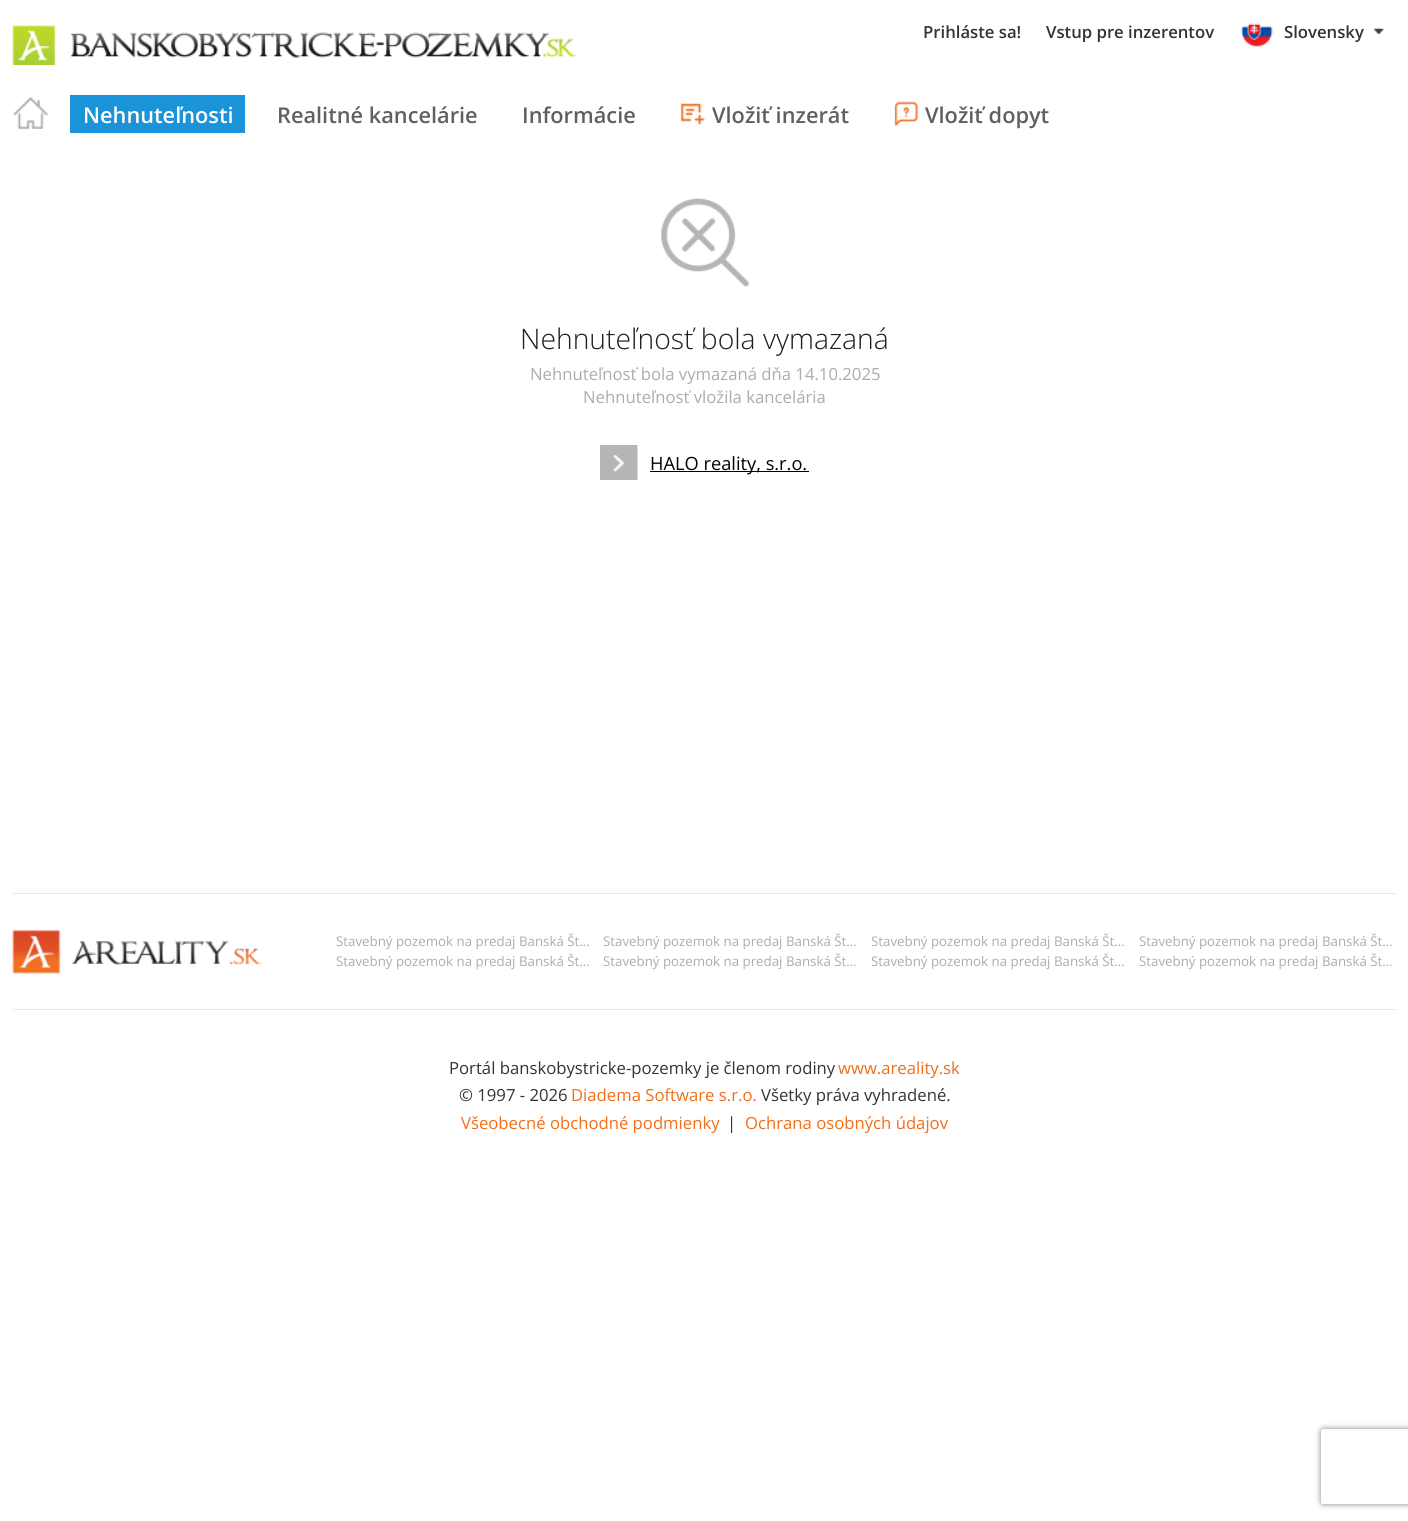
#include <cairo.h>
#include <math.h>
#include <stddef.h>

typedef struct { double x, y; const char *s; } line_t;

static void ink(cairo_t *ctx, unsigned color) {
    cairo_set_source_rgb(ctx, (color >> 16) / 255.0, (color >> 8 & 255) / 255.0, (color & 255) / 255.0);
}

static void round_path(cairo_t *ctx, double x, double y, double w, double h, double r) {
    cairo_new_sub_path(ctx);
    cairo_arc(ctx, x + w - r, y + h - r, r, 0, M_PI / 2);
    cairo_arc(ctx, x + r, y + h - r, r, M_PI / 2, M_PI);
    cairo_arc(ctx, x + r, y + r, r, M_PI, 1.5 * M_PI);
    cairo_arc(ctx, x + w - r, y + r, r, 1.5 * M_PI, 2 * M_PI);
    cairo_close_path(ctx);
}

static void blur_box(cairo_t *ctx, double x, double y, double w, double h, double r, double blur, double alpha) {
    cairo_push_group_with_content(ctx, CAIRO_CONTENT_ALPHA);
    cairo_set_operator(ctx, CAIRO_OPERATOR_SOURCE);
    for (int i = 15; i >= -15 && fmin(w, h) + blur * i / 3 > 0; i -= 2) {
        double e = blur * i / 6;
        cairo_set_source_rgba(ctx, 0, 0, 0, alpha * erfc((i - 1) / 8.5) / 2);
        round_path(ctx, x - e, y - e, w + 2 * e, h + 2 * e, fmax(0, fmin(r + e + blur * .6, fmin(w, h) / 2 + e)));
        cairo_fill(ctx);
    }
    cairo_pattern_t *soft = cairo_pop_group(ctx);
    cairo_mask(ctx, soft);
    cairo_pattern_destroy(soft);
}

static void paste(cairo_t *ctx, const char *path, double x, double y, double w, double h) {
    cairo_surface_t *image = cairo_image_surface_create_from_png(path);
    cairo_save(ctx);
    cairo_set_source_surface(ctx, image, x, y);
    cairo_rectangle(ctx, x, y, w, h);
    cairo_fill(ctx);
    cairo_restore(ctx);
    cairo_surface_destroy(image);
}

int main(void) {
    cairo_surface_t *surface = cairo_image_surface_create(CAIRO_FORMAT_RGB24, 1408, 1521);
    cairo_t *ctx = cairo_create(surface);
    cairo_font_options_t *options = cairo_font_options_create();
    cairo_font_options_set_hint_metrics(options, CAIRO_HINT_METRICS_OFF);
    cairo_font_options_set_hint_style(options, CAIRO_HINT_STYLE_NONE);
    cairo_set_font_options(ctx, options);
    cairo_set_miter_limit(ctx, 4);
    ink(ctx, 0xFFFFFF);
    cairo_paint(ctx);
    paste(ctx, "media/1.png", 12, 25, 565, 40);
    cairo_select_font_face(ctx, "Open Sans SemiBold", CAIRO_FONT_SLANT_NORMAL, CAIRO_FONT_WEIGHT_NORMAL);
    cairo_set_font_size(ctx, 16.7);
    ink(ctx, 0x333333);
    cairo_move_to(ctx, 923, 38);
    cairo_show_text(ctx, "Prihláste sa!");
    cairo_move_to(ctx, 1046, 38);
    cairo_show_text(ctx, "Vstup pre inzerentov");
    paste(ctx, "media/2.png", 1241, 23, 32, 24);
    cairo_move_to(ctx, 1284, 38);
    cairo_show_text(ctx, "Slovensky");
    paste(ctx, "media/3.png", 1373, 28, 11, 6);
    paste(ctx, "media/4.png", 13, 97, 35, 32);
    ink(ctx, 0x1A93D8);
    cairo_rectangle(ctx, 70, 95, 175, 38);
    cairo_fill(ctx);
    cairo_set_font_size(ctx, 21.75);
    ink(ctx, 0xFFFFFF);
    cairo_move_to(ctx, 83, 123);
    cairo_show_text(ctx, "Nehnuteľnosti");
    ink(ctx, 0x606060);
    cairo_move_to(ctx, 277, 123);
    cairo_show_text(ctx, "Realitné kancelárie");
    cairo_move_to(ctx, 522, 123);
    cairo_show_text(ctx, "Informácie");
    paste(ctx, "media/5.png", 680, 103, 25, 22);
    cairo_move_to(ctx, 712, 123);
    cairo_show_text(ctx, "Vložiť inzerát");
    paste(ctx, "media/6.png", 894, 101, 24, 26);
    cairo_move_to(ctx, 925, 123);
    cairo_show_text(ctx, "Vložiť dopyt");
    paste(ctx, "media/7.png", 661, 198, 88, 89);
    cairo_select_font_face(ctx, "Open Sans Light", CAIRO_FONT_SLANT_NORMAL, CAIRO_FONT_WEIGHT_NORMAL);
    cairo_set_font_size(ctx, 28.3);
    ink(ctx, 0x1F1F1F);
    cairo_move_to(ctx, 520, 349);
    cairo_show_text(ctx, "Nehnuteľnosť bola vymazaná");
    cairo_select_font_face(ctx, "Open Sans", CAIRO_FONT_SLANT_NORMAL, CAIRO_FONT_WEIGHT_NORMAL);
    cairo_set_font_size(ctx, 16.7);
    ink(ctx, 0xACACAC);
    cairo_move_to(ctx, 530, 380);
    cairo_show_text(ctx, "Nehnuteľnosť bola vymazaná dňa 14.10.2025");
    cairo_move_to(ctx, 583, 403);
    cairo_show_text(ctx, "Nehnuteľnosť vložila kancelária");
    paste(ctx, "media/8.png", 600, 445, 38, 35);
    ink(ctx, 0x000000);
    cairo_rectangle(ctx, 650, 471, 159, 1);
    cairo_fill(ctx);
    cairo_set_font_size(ctx, 18.25);
    cairo_move_to(ctx, 650, 470);
    cairo_show_text(ctx, "HALO reality, s.r.o.");
    ink(ctx, 0xE9E9E9);
    cairo_rectangle(ctx, 13, 893, 1383, 1);
    cairo_fill(ctx);
    cairo_rectangle(ctx, 13, 1009, 1383, 1);
    cairo_fill(ctx);
    paste(ctx, "media/9.png", 12, 930, 250, 44);
    cairo_set_font_size(ctx, 13.3);
    ink(ctx, 0xACACAC);
    {
        static const line_t items[] = {
            {336, 946, "Stavebný pozemok na predaj Banská Št…"},
            {603, 946, "Stavebný pozemok na predaj Banská Št…"},
            {871, 946, "Stavebný pozemok na predaj Banská Št…"},
            {1139, 946, "Stavebný pozemok na predaj Banská Št…"},
            {336, 966, "Stavebný pozemok na predaj Banská Št…"},
            {603, 966, "Stavebný pozemok na predaj Banská Št…"},
            {871, 966, "Stavebný pozemok na predaj Banská Št…"},
            {1139, 966, "Stavebný pozemok na predaj Banská Št…"},
        };
        for (size_t i = 0; i < sizeof items / sizeof *items; i++) {
            cairo_move_to(ctx, items[i].x, items[i].y);
            cairo_show_text(ctx, items[i].s);
        }
    }
    cairo_set_font_size(ctx, 16.7);
    ink(ctx, 0x333333);
    cairo_move_to(ctx, 449, 1074);
    cairo_show_text(ctx, "Portál banskobystricke-pozemky je členom rodiny");
    ink(ctx, 0xF06E1A);
    cairo_move_to(ctx, 838, 1074);
    cairo_show_text(ctx, "www.areality.sk");
    ink(ctx, 0x333333);
    cairo_move_to(ctx, 459, 1101);
    cairo_show_text(ctx, "© 1997 - 2026");
    ink(ctx, 0xF06E1A);
    cairo_move_to(ctx, 571, 1101);
    cairo_show_text(ctx, "Diadema Software s.r.o.");
    ink(ctx, 0x333333);
    cairo_move_to(ctx, 761, 1101);
    cairo_show_text(ctx, "Všetky práva vyhradené.");
    ink(ctx, 0xF06E1A);
    cairo_move_to(ctx, 461, 1129);
    cairo_show_text(ctx, "Všeobecné obchodné podmienky");
    ink(ctx, 0x333333);
    cairo_move_to(ctx, 727, 1129);
    cairo_show_text(ctx, "|");
    ink(ctx, 0xF06E1A);
    cairo_move_to(ctx, 745, 1129);
    cairo_show_text(ctx, "Ochrana osobných údajov");
    cairo_save(ctx);
    cairo_set_fill_rule(ctx, CAIRO_FILL_RULE_EVEN_ODD);
    cairo_new_path(ctx);
    cairo_move_to(ctx, 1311, 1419);
    cairo_line_to(ctx, 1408, 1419);
    cairo_line_to(ctx, 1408, 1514);
    cairo_line_to(ctx, 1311, 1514);
    cairo_close_path(ctx);
    cairo_move_to(ctx, 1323.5, 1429);
    cairo_line_to(ctx, 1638.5, 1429);
    cairo_curve_to(ctx, 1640, 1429, 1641, 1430, 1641, 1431.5);
    cairo_line_to(ctx, 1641, 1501.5);
    cairo_curve_to(ctx, 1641, 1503, 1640, 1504, 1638.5, 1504);
    cairo_line_to(ctx, 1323.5, 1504);
    cairo_curve_to(ctx, 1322, 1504, 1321, 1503, 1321, 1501.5);
    cairo_line_to(ctx, 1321, 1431.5);
    cairo_curve_to(ctx, 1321, 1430, 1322, 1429, 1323.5, 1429);
    cairo_close_path(ctx);
    cairo_clip(ctx);
    ink(ctx, 0x808080);
    blur_box(ctx, 1321, 1429, 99, 75, 2.5, 3, 1);
    cairo_restore(ctx);
    cairo_surface_write_to_png(surface, "image.png");
    cairo_font_options_destroy(options);
    cairo_destroy(ctx);
    cairo_surface_destroy(surface);
    return 0;
}
